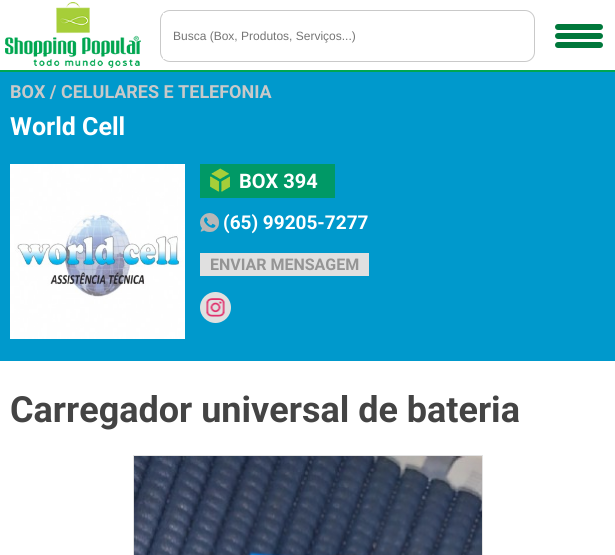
#include <cairo.h>
#include <math.h>
#include <stddef.h>


static void ink(cairo_t *ctx, unsigned color) {
    cairo_set_source_rgb(ctx, (color >> 16) / 255.0, (color >> 8 & 255) / 255.0, (color & 255) / 255.0);
}

static void round_path(cairo_t *ctx, double x, double y, double w, double h, double r) {
    cairo_new_sub_path(ctx);
    cairo_arc(ctx, x + w - r, y + h - r, r, 0, M_PI / 2);
    cairo_arc(ctx, x + r, y + h - r, r, M_PI / 2, M_PI);
    cairo_arc(ctx, x + r, y + r, r, M_PI, 1.5 * M_PI);
    cairo_arc(ctx, x + w - r, y + r, r, 1.5 * M_PI, 2 * M_PI);
    cairo_close_path(ctx);
}

static void paste(cairo_t *ctx, const char *path, double x, double y, double w, double h) {
    cairo_surface_t *image = cairo_image_surface_create_from_png(path);
    cairo_save(ctx);
    cairo_set_source_surface(ctx, image, x, y);
    cairo_rectangle(ctx, x, y, w, h);
    cairo_fill(ctx);
    cairo_restore(ctx);
    cairo_surface_destroy(image);
}

int main(void) {
    cairo_surface_t *surface = cairo_image_surface_create(CAIRO_FORMAT_RGB24, 615, 555);
    cairo_t *ctx = cairo_create(surface);
    cairo_font_options_t *options = cairo_font_options_create();
    cairo_font_options_set_hint_metrics(options, CAIRO_HINT_METRICS_OFF);
    cairo_font_options_set_hint_style(options, CAIRO_HINT_STYLE_NONE);
    cairo_set_font_options(ctx, options);
    cairo_set_miter_limit(ctx, 4);
    ink(ctx, 0xFFFFFF);
    cairo_paint(ctx);
    ink(ctx, 0x00A651);
    cairo_rectangle(ctx, 0, 70, 615, 2);
    cairo_fill(ctx);
    paste(ctx, "media/1.png", 5, 2, 136, 66);
    round_path(ctx, 160.5, 10.5, 374, 51, 9.5);
    ink(ctx, 0xC9C9C9);
    cairo_set_line_width(ctx, 1);
    cairo_stroke(ctx);
    ink(ctx, 0xFFFFFF);
    cairo_rectangle(ctx, 163, 13, 2, 46);
    cairo_fill(ctx);
    cairo_select_font_face(ctx, "Liberation Sans", CAIRO_FONT_SLANT_NORMAL, CAIRO_FONT_WEIGHT_NORMAL);
    cairo_set_font_size(ctx, 12);
    ink(ctx, 0x757575);
    cairo_move_to(ctx, 173, 40);
    cairo_show_text(ctx, "Busca (Box, Produtos, Serviços...)");
    ink(ctx, 0x00783B);
    round_path(ctx, 555, 24, 48, 6, 3);
    cairo_fill(ctx);
    round_path(ctx, 555, 33, 48, 6, 3);
    cairo_fill(ctx);
    round_path(ctx, 555, 42, 48, 6, 3);
    cairo_fill(ctx);
    ink(ctx, 0x0099CC);
    cairo_rectangle(ctx, 0, 72, 615, 289);
    cairo_fill(ctx);
    cairo_select_font_face(ctx, "Roboto", CAIRO_FONT_SLANT_NORMAL, CAIRO_FONT_WEIGHT_BOLD);
    cairo_set_font_size(ctx, 18);
    ink(ctx, 0xC9C9C9);
    cairo_move_to(ctx, 10, 98);
    cairo_show_text(ctx, "BOX / CELULARES E TELEFONIA");
    cairo_set_font_size(ctx, 25);
    ink(ctx, 0xFFFFFF);
    cairo_move_to(ctx, 10, 135);
    cairo_show_text(ctx, "World Cell");
    paste(ctx, "media/2.png", 10, 164, 175, 175);
    ink(ctx, 0x009966);
    cairo_rectangle(ctx, 200, 164, 135, 34);
    cairo_fill(ctx);
    paste(ctx, "media/3.png", 210, 168, 20, 24);
    cairo_set_font_size(ctx, 20);
    ink(ctx, 0xFFFFFF);
    cairo_move_to(ctx, 239, 188);
    cairo_show_text(ctx, "BOX 394");
    paste(ctx, "media/4.png", 200, 213, 19, 19);
    cairo_set_font_size(ctx, 19);
    cairo_move_to(ctx, 223, 229);
    cairo_show_text(ctx, "(65) 99205-7277");
    ink(ctx, 0xE0E0E0);
    cairo_rectangle(ctx, 200, 253, 169, 23);
    cairo_fill(ctx);
    cairo_set_font_size(ctx, 16);
    ink(ctx, 0x949494);
    cairo_move_to(ctx, 210, 270);
    cairo_show_text(ctx, "ENVIAR MENSAGEM");
    ink(ctx, 0xE0E0E0);
    cairo_new_path(ctx);
    cairo_arc(ctx, 215.5, 307.5, 15.5, 0, 2 * M_PI);
    cairo_fill(ctx);
    paste(ctx, "media/5.png", 206, 298, 19, 19);
    cairo_set_font_size(ctx, 36);
    ink(ctx, 0x444444);
    cairo_move_to(ctx, 10, 422);
    cairo_show_text(ctx, "Carregador universal de bateria");
    cairo_rectangle(ctx, 133.5, 455.5, 349, 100);
    ink(ctx, 0xE4E4E4);
    cairo_stroke(ctx);
    paste(ctx, "media/6.png", 134, 456, 348, 99);
    cairo_surface_write_to_png(surface, "image.png");
    cairo_font_options_destroy(options);
    cairo_destroy(ctx);
    cairo_surface_destroy(surface);
    return 0;
}
